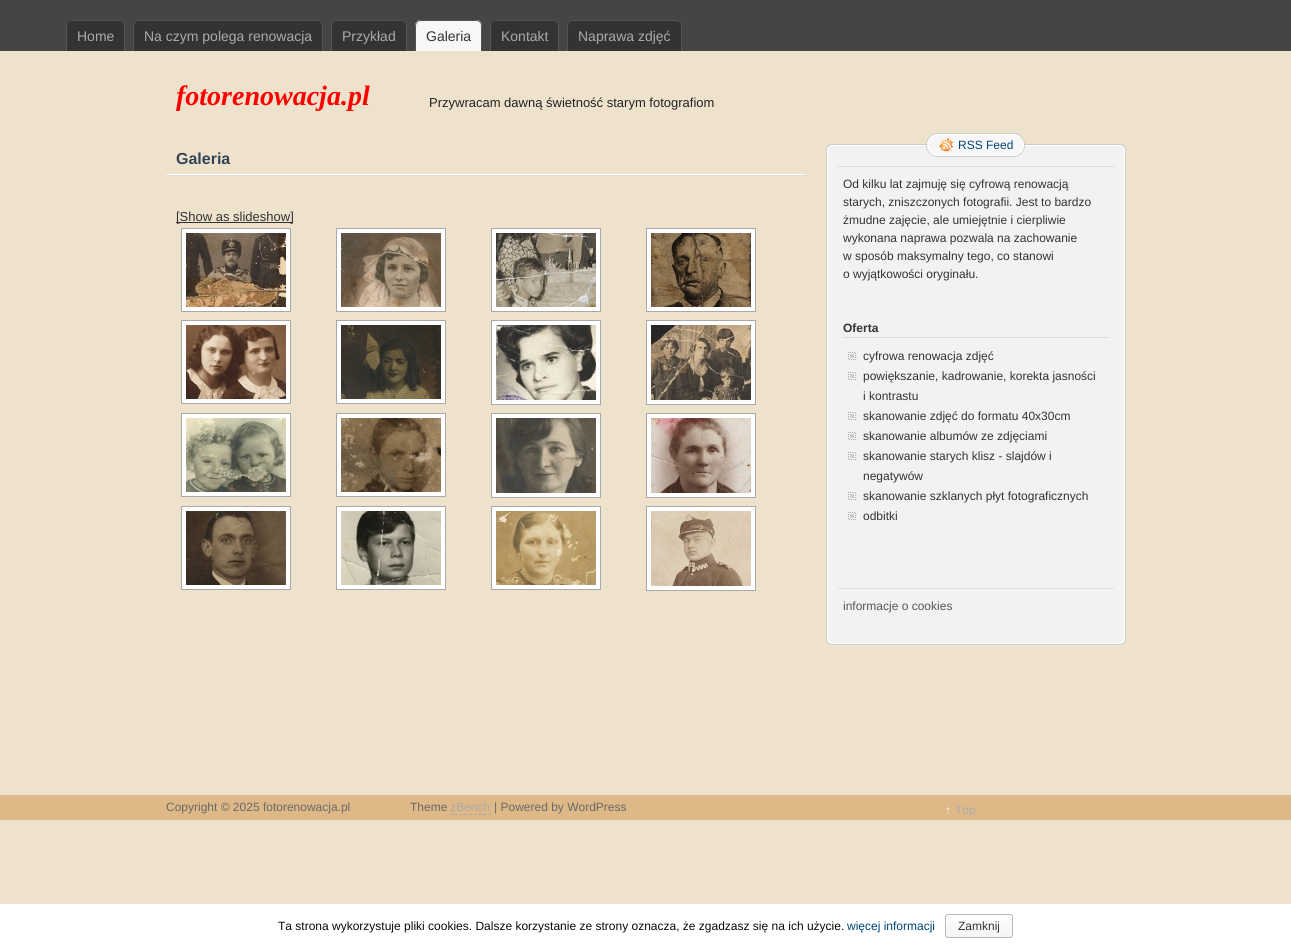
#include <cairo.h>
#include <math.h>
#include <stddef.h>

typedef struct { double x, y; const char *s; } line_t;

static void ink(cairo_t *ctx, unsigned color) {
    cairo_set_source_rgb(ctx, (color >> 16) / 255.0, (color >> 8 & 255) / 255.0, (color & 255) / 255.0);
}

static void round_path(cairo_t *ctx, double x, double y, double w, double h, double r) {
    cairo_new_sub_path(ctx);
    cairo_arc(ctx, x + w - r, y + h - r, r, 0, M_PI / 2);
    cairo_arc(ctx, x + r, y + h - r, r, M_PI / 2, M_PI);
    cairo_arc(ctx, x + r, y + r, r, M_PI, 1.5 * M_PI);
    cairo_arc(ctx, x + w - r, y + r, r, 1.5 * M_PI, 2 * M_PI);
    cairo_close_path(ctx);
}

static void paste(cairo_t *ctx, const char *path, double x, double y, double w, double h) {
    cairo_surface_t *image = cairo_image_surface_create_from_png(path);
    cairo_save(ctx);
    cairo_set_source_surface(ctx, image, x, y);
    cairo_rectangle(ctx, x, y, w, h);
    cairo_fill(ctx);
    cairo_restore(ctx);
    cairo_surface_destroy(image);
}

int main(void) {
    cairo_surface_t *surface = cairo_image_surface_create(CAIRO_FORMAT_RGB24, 1291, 948);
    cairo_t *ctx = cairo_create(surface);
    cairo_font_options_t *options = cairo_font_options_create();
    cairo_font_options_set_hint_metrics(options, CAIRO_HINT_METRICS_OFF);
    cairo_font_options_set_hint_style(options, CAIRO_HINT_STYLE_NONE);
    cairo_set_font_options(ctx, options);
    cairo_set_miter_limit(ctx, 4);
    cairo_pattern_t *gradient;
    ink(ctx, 0xEFE2CC);
    cairo_paint(ctx);
    ink(ctx, 0x454546);
    cairo_rectangle(ctx, 0, 0, 1291, 51);
    cairo_fill(ctx);
    ink(ctx, 0x333333);
    cairo_new_path(ctx);
    cairo_move_to(ctx, 72, 20);
    cairo_line_to(ctx, 119, 20);
    cairo_curve_to(ctx, 122.5, 20, 125, 22.5, 125, 26);
    cairo_line_to(ctx, 125, 51);
    cairo_line_to(ctx, 66, 51);
    cairo_line_to(ctx, 66, 26);
    cairo_curve_to(ctx, 66, 22.5, 68.5, 20, 72, 20);
    cairo_close_path(ctx);
    cairo_fill(ctx);
    ink(ctx, 0x555555);
    cairo_set_fill_rule(ctx, CAIRO_FILL_RULE_EVEN_ODD);
    cairo_new_path(ctx);
    cairo_move_to(ctx, 72, 20);
    cairo_line_to(ctx, 119, 20);
    cairo_curve_to(ctx, 122, 20, 125, 23, 125, 26);
    cairo_line_to(ctx, 125, 51);
    cairo_line_to(ctx, 66, 51);
    cairo_line_to(ctx, 66, 26);
    cairo_curve_to(ctx, 66, 23, 69, 20, 72, 20);
    cairo_close_path(ctx);
    cairo_move_to(ctx, 72, 21);
    cairo_line_to(ctx, 119, 21);
    cairo_curve_to(ctx, 122, 21, 124, 23, 124, 26);
    cairo_line_to(ctx, 124, 51);
    cairo_line_to(ctx, 67, 51);
    cairo_line_to(ctx, 67, 26);
    cairo_curve_to(ctx, 67, 23, 69, 21, 72, 21);
    cairo_close_path(ctx);
    cairo_fill(ctx);
    cairo_select_font_face(ctx, "Liberation Sans", CAIRO_FONT_SLANT_NORMAL, CAIRO_FONT_WEIGHT_NORMAL);
    cairo_set_font_size(ctx, 14);
    ink(ctx, 0xAAAAAA);
    cairo_move_to(ctx, 77, 41);
    cairo_show_text(ctx, "Home");
    ink(ctx, 0x333333);
    cairo_new_path(ctx);
    cairo_move_to(ctx, 139, 20);
    cairo_line_to(ctx, 317, 20);
    cairo_curve_to(ctx, 320.5, 20, 323, 22.5, 323, 26);
    cairo_line_to(ctx, 323, 51);
    cairo_line_to(ctx, 133, 51);
    cairo_line_to(ctx, 133, 26);
    cairo_curve_to(ctx, 133, 22.5, 135.5, 20, 139, 20);
    cairo_close_path(ctx);
    cairo_fill(ctx);
    ink(ctx, 0x555555);
    cairo_new_path(ctx);
    cairo_move_to(ctx, 139, 20);
    cairo_line_to(ctx, 317, 20);
    cairo_curve_to(ctx, 320, 20, 323, 23, 323, 26);
    cairo_line_to(ctx, 323, 51);
    cairo_line_to(ctx, 133, 51);
    cairo_line_to(ctx, 133, 26);
    cairo_curve_to(ctx, 133, 23, 136, 20, 139, 20);
    cairo_close_path(ctx);
    cairo_move_to(ctx, 139, 21);
    cairo_line_to(ctx, 317, 21);
    cairo_curve_to(ctx, 320, 21, 322, 23, 322, 26);
    cairo_line_to(ctx, 322, 51);
    cairo_line_to(ctx, 134, 51);
    cairo_line_to(ctx, 134, 26);
    cairo_curve_to(ctx, 134, 23, 136, 21, 139, 21);
    cairo_close_path(ctx);
    cairo_fill(ctx);
    ink(ctx, 0xAAAAAA);
    cairo_move_to(ctx, 144, 41);
    cairo_show_text(ctx, "Na czym polega renowacja");
    ink(ctx, 0x333333);
    cairo_new_path(ctx);
    cairo_move_to(ctx, 337, 20);
    cairo_line_to(ctx, 401, 20);
    cairo_curve_to(ctx, 404.5, 20, 407, 22.5, 407, 26);
    cairo_line_to(ctx, 407, 51);
    cairo_line_to(ctx, 331, 51);
    cairo_line_to(ctx, 331, 26);
    cairo_curve_to(ctx, 331, 22.5, 333.5, 20, 337, 20);
    cairo_close_path(ctx);
    cairo_fill(ctx);
    ink(ctx, 0x555555);
    cairo_new_path(ctx);
    cairo_move_to(ctx, 337, 20);
    cairo_line_to(ctx, 401, 20);
    cairo_curve_to(ctx, 404, 20, 407, 23, 407, 26);
    cairo_line_to(ctx, 407, 51);
    cairo_line_to(ctx, 331, 51);
    cairo_line_to(ctx, 331, 26);
    cairo_curve_to(ctx, 331, 23, 334, 20, 337, 20);
    cairo_close_path(ctx);
    cairo_move_to(ctx, 337, 21);
    cairo_line_to(ctx, 401, 21);
    cairo_curve_to(ctx, 404, 21, 406, 23, 406, 26);
    cairo_line_to(ctx, 406, 51);
    cairo_line_to(ctx, 332, 51);
    cairo_line_to(ctx, 332, 26);
    cairo_curve_to(ctx, 332, 23, 334, 21, 337, 21);
    cairo_close_path(ctx);
    cairo_fill(ctx);
    ink(ctx, 0xAAAAAA);
    cairo_move_to(ctx, 342, 41);
    cairo_show_text(ctx, "Przykład");
    ink(ctx, 0xF7F7F7);
    cairo_new_path(ctx);
    cairo_move_to(ctx, 421, 20);
    cairo_line_to(ctx, 476, 20);
    cairo_curve_to(ctx, 479.5, 20, 482, 22.5, 482, 26);
    cairo_line_to(ctx, 482, 51);
    cairo_line_to(ctx, 415, 51);
    cairo_line_to(ctx, 415, 26);
    cairo_curve_to(ctx, 415, 22.5, 417.5, 20, 421, 20);
    cairo_close_path(ctx);
    cairo_fill(ctx);
    ink(ctx, 0x555555);
    cairo_new_path(ctx);
    cairo_move_to(ctx, 421, 20);
    cairo_line_to(ctx, 476, 20);
    cairo_curve_to(ctx, 479, 20, 482, 23, 482, 26);
    cairo_line_to(ctx, 482, 51);
    cairo_line_to(ctx, 415, 51);
    cairo_line_to(ctx, 415, 26);
    cairo_curve_to(ctx, 415, 23, 418, 20, 421, 20);
    cairo_close_path(ctx);
    cairo_move_to(ctx, 421, 21);
    cairo_line_to(ctx, 476, 21);
    cairo_curve_to(ctx, 479, 21, 481, 23, 481, 26);
    cairo_line_to(ctx, 481, 51);
    cairo_line_to(ctx, 416, 51);
    cairo_line_to(ctx, 416, 26);
    cairo_curve_to(ctx, 416, 23, 418, 21, 421, 21);
    cairo_close_path(ctx);
    cairo_fill(ctx);
    ink(ctx, 0x333333);
    cairo_move_to(ctx, 426, 41);
    cairo_show_text(ctx, "Galeria");
    cairo_new_path(ctx);
    cairo_move_to(ctx, 496, 20);
    cairo_line_to(ctx, 553, 20);
    cairo_curve_to(ctx, 556.5, 20, 559, 22.5, 559, 26);
    cairo_line_to(ctx, 559, 51);
    cairo_line_to(ctx, 490, 51);
    cairo_line_to(ctx, 490, 26);
    cairo_curve_to(ctx, 490, 22.5, 492.5, 20, 496, 20);
    cairo_close_path(ctx);
    cairo_fill(ctx);
    ink(ctx, 0x555555);
    cairo_new_path(ctx);
    cairo_move_to(ctx, 496, 20);
    cairo_line_to(ctx, 553, 20);
    cairo_curve_to(ctx, 556, 20, 559, 23, 559, 26);
    cairo_line_to(ctx, 559, 51);
    cairo_line_to(ctx, 490, 51);
    cairo_line_to(ctx, 490, 26);
    cairo_curve_to(ctx, 490, 23, 493, 20, 496, 20);
    cairo_close_path(ctx);
    cairo_move_to(ctx, 496, 21);
    cairo_line_to(ctx, 553, 21);
    cairo_curve_to(ctx, 556, 21, 558, 23, 558, 26);
    cairo_line_to(ctx, 558, 51);
    cairo_line_to(ctx, 491, 51);
    cairo_line_to(ctx, 491, 26);
    cairo_curve_to(ctx, 491, 23, 493, 21, 496, 21);
    cairo_close_path(ctx);
    cairo_fill(ctx);
    ink(ctx, 0xAAAAAA);
    cairo_move_to(ctx, 501, 41);
    cairo_show_text(ctx, "Kontakt");
    ink(ctx, 0x333333);
    cairo_new_path(ctx);
    cairo_move_to(ctx, 573, 20);
    cairo_line_to(ctx, 676, 20);
    cairo_curve_to(ctx, 679.5, 20, 682, 22.5, 682, 26);
    cairo_line_to(ctx, 682, 51);
    cairo_line_to(ctx, 567, 51);
    cairo_line_to(ctx, 567, 26);
    cairo_curve_to(ctx, 567, 22.5, 569.5, 20, 573, 20);
    cairo_close_path(ctx);
    cairo_fill(ctx);
    ink(ctx, 0x555555);
    cairo_new_path(ctx);
    cairo_move_to(ctx, 573, 20);
    cairo_line_to(ctx, 676, 20);
    cairo_curve_to(ctx, 679, 20, 682, 23, 682, 26);
    cairo_line_to(ctx, 682, 51);
    cairo_line_to(ctx, 567, 51);
    cairo_line_to(ctx, 567, 26);
    cairo_curve_to(ctx, 567, 23, 570, 20, 573, 20);
    cairo_close_path(ctx);
    cairo_move_to(ctx, 573, 21);
    cairo_line_to(ctx, 676, 21);
    cairo_curve_to(ctx, 679, 21, 681, 23, 681, 26);
    cairo_line_to(ctx, 681, 51);
    cairo_line_to(ctx, 568, 51);
    cairo_line_to(ctx, 568, 26);
    cairo_curve_to(ctx, 568, 23, 570, 21, 573, 21);
    cairo_close_path(ctx);
    cairo_fill(ctx);
    ink(ctx, 0xAAAAAA);
    cairo_move_to(ctx, 578, 41);
    cairo_show_text(ctx, "Naprawa zdjęć");
    cairo_select_font_face(ctx, "Liberation Serif", CAIRO_FONT_SLANT_ITALIC, CAIRO_FONT_WEIGHT_BOLD);
    cairo_set_font_size(ctx, 28);
    ink(ctx, 0xFF0000);
    cairo_move_to(ctx, 176, 105);
    cairo_show_text(ctx, "fotorenowacja.pl");
    cairo_select_font_face(ctx, "Liberation Sans", CAIRO_FONT_SLANT_NORMAL, CAIRO_FONT_WEIGHT_NORMAL);
    cairo_set_font_size(ctx, 13);
    ink(ctx, 0x222222);
    cairo_move_to(ctx, 429, 107);
    cairo_show_text(ctx, "Przywracam dawną świetność starym fotografiom");
    ink(ctx, 0xFAFAFA);
    cairo_rectangle(ctx, 166, 174, 640, 1);
    cairo_fill(ctx);
    cairo_select_font_face(ctx, "Liberation Sans", CAIRO_FONT_SLANT_NORMAL, CAIRO_FONT_WEIGHT_BOLD);
    cairo_set_font_size(ctx, 16);
    ink(ctx, 0x334455);
    cairo_move_to(ctx, 176, 164);
    cairo_show_text(ctx, "Galeria");
    ink(ctx, 0xDDDDDD);
    cairo_rectangle(ctx, 166, 175, 640, 1);
    cairo_fill(ctx);
    ink(ctx, 0x333333);
    cairo_rectangle(ctx, 176, 222, 117, 1);
    cairo_fill(ctx);
    cairo_select_font_face(ctx, "Liberation Sans", CAIRO_FONT_SLANT_NORMAL, CAIRO_FONT_WEIGHT_NORMAL);
    cairo_set_font_size(ctx, 13);
    cairo_move_to(ctx, 176, 221);
    cairo_show_text(ctx, "[Show as slideshow]");
    ink(ctx, 0xFFFFFF);
    cairo_rectangle(ctx, 181.5, 228.5, 109, 83);
    cairo_fill_preserve(ctx);
    ink(ctx, 0xA9A9A9);
    cairo_set_line_width(ctx, 1);
    cairo_stroke(ctx);
    paste(ctx, "media/1.png", 186, 233, 100, 74);
    ink(ctx, 0xFFFFFF);
    cairo_rectangle(ctx, 336.5, 228.5, 109, 83);
    cairo_fill_preserve(ctx);
    ink(ctx, 0xA9A9A9);
    cairo_stroke(ctx);
    paste(ctx, "media/2.png", 341, 233, 100, 74);
    ink(ctx, 0xFFFFFF);
    cairo_rectangle(ctx, 491.5, 228.5, 109, 83);
    cairo_fill_preserve(ctx);
    ink(ctx, 0xA9A9A9);
    cairo_stroke(ctx);
    paste(ctx, "media/3.png", 496, 233, 100, 74);
    ink(ctx, 0xFFFFFF);
    cairo_rectangle(ctx, 646.5, 228.5, 109, 83);
    cairo_fill_preserve(ctx);
    ink(ctx, 0xA9A9A9);
    cairo_stroke(ctx);
    paste(ctx, "media/4.png", 651, 233, 100, 74);
    ink(ctx, 0xFFFFFF);
    cairo_rectangle(ctx, 181.5, 320.5, 109, 83);
    cairo_fill_preserve(ctx);
    ink(ctx, 0xA9A9A9);
    cairo_stroke(ctx);
    paste(ctx, "media/5.png", 186, 325, 100, 74);
    ink(ctx, 0xFFFFFF);
    cairo_rectangle(ctx, 336.5, 320.5, 109, 83);
    cairo_fill_preserve(ctx);
    ink(ctx, 0xA9A9A9);
    cairo_stroke(ctx);
    paste(ctx, "media/6.png", 341, 325, 100, 74);
    ink(ctx, 0xFFFFFF);
    cairo_rectangle(ctx, 491.5, 320.5, 109, 84);
    cairo_fill_preserve(ctx);
    ink(ctx, 0xA9A9A9);
    cairo_stroke(ctx);
    paste(ctx, "media/7.png", 496, 325, 100, 75);
    ink(ctx, 0xFFFFFF);
    cairo_rectangle(ctx, 646.5, 320.5, 109, 84);
    cairo_fill_preserve(ctx);
    ink(ctx, 0xA9A9A9);
    cairo_stroke(ctx);
    paste(ctx, "media/8.png", 651, 325, 100, 75);
    ink(ctx, 0xFFFFFF);
    cairo_rectangle(ctx, 181.5, 413.5, 109, 83);
    cairo_fill_preserve(ctx);
    ink(ctx, 0xA9A9A9);
    cairo_stroke(ctx);
    paste(ctx, "media/9.png", 186, 418, 100, 74);
    ink(ctx, 0xFFFFFF);
    cairo_rectangle(ctx, 336.5, 413.5, 109, 83);
    cairo_fill_preserve(ctx);
    ink(ctx, 0xA9A9A9);
    cairo_stroke(ctx);
    paste(ctx, "media/10.png", 341, 418, 100, 74);
    ink(ctx, 0xFFFFFF);
    cairo_rectangle(ctx, 491.5, 413.5, 109, 84);
    cairo_fill_preserve(ctx);
    ink(ctx, 0xA9A9A9);
    cairo_stroke(ctx);
    paste(ctx, "media/11.png", 496, 418, 100, 75);
    ink(ctx, 0xFFFFFF);
    cairo_rectangle(ctx, 646.5, 413.5, 109, 84);
    cairo_fill_preserve(ctx);
    ink(ctx, 0xA9A9A9);
    cairo_stroke(ctx);
    paste(ctx, "media/12.png", 651, 418, 100, 75);
    ink(ctx, 0xFFFFFF);
    cairo_rectangle(ctx, 181.5, 506.5, 109, 83);
    cairo_fill_preserve(ctx);
    ink(ctx, 0xA9A9A9);
    cairo_stroke(ctx);
    paste(ctx, "media/13.png", 186, 511, 100, 74);
    ink(ctx, 0xFFFFFF);
    cairo_rectangle(ctx, 336.5, 506.5, 109, 83);
    cairo_fill_preserve(ctx);
    ink(ctx, 0xA9A9A9);
    cairo_stroke(ctx);
    paste(ctx, "media/14.png", 341, 511, 100, 74);
    ink(ctx, 0xFFFFFF);
    cairo_rectangle(ctx, 491.5, 506.5, 109, 83);
    cairo_fill_preserve(ctx);
    ink(ctx, 0xA9A9A9);
    cairo_stroke(ctx);
    paste(ctx, "media/15.png", 496, 511, 100, 74);
    ink(ctx, 0xFFFFFF);
    cairo_rectangle(ctx, 646.5, 506.5, 109, 84);
    cairo_fill_preserve(ctx);
    ink(ctx, 0xA9A9A9);
    cairo_stroke(ctx);
    paste(ctx, "media/16.png", 651, 511, 100, 75);
    ink(ctx, 0xF2F2F2);
    round_path(ctx, 826.5, 144.5, 299, 500, 5.5);
    cairo_fill_preserve(ctx);
    ink(ctx, 0xCCCCCC);
    cairo_stroke(ctx);
    round_path(ctx, 827.5, 145.5, 297, 498, 5.5);
    ink(ctx, 0xFFFFFF);
    cairo_stroke(ctx);
    round_path(ctx, 926.5, 133.5, 98, 23, 11.5);
    ink(ctx, 0xCCCCCC);
    cairo_stroke(ctx);
    ink(ctx, 0xF7F7F7);
    round_path(ctx, 927.5, 134.5, 96, 21, 10.5);
    cairo_fill_preserve(ctx);
    ink(ctx, 0xFFFFFF);
    cairo_stroke(ctx);
    paste(ctx, "media/17.png", 938, 138, 16, 14);
    cairo_set_font_size(ctx, 12);
    ink(ctx, 0x004477);
    cairo_move_to(ctx, 958, 149);
    cairo_show_text(ctx, "RSS Feed");
    ink(ctx, 0xDDDDDD);
    cairo_rectangle(ctx, 838, 166, 276, 1);
    cairo_fill(ctx);
    ink(ctx, 0x333333);
    {
        static const line_t items[] = {
            {843, 188, "Od kilku lat zajmuję się cyfrową renowacją"},
            {843, 206, "starych, zniszczonych fotografii. Jest to bardzo"},
            {843, 224, "żmudne zajęcie, ale umiejętnie i cierpliwie"},
            {843, 242, "wykonana naprawa pozwala na zachowanie"},
            {843, 260, "w sposób maksymalny tego, co stanowi"},
            {843, 278, "o wyjątkowości oryginału."},
        };
        for (size_t i = 0; i < sizeof items / sizeof *items; i++) {
            cairo_move_to(ctx, items[i].x, items[i].y);
            cairo_show_text(ctx, items[i].s);
        }
    }
    cairo_select_font_face(ctx, "Liberation Sans", CAIRO_FONT_SLANT_NORMAL, CAIRO_FONT_WEIGHT_BOLD);
    cairo_move_to(ctx, 843, 332);
    cairo_show_text(ctx, "Oferta");
    ink(ctx, 0xDDDDDD);
    cairo_rectangle(ctx, 843, 337, 266, 1);
    cairo_fill(ctx);
    paste(ctx, "media/18.png", 848, 352, 9, 8);
    cairo_select_font_face(ctx, "Liberation Sans", CAIRO_FONT_SLANT_NORMAL, CAIRO_FONT_WEIGHT_NORMAL);
    ink(ctx, 0x333333);
    cairo_move_to(ctx, 863, 360);
    cairo_show_text(ctx, "cyfrowa renowacja zdjęć");
    paste(ctx, "media/18.png", 848, 372, 9, 8);
    cairo_move_to(ctx, 863, 380);
    cairo_show_text(ctx, "powiększanie, kadrowanie, korekta jasności");
    cairo_move_to(ctx, 863, 400);
    cairo_show_text(ctx, "i kontrastu");
    paste(ctx, "media/18.png", 848, 412, 9, 8);
    cairo_move_to(ctx, 863, 420);
    cairo_show_text(ctx, "skanowanie zdjęć do formatu 40x30cm");
    paste(ctx, "media/18.png", 848, 432, 9, 8);
    cairo_move_to(ctx, 863, 440);
    cairo_show_text(ctx, "skanowanie albumów ze zdjęciami");
    paste(ctx, "media/18.png", 848, 452, 9, 8);
    cairo_move_to(ctx, 863, 460);
    cairo_show_text(ctx, "skanowanie starych klisz - slajdów i");
    cairo_move_to(ctx, 863, 480);
    cairo_show_text(ctx, "negatywów");
    paste(ctx, "media/18.png", 848, 492, 9, 8);
    cairo_move_to(ctx, 863, 500);
    cairo_show_text(ctx, "skanowanie szklanych płyt fotograficznych");
    paste(ctx, "media/18.png", 848, 512, 9, 8);
    cairo_move_to(ctx, 863, 520);
    cairo_show_text(ctx, "odbitki");
    ink(ctx, 0xDDDDDD);
    cairo_rectangle(ctx, 838, 588, 276, 1);
    cairo_fill(ctx);
    ink(ctx, 0x555555);
    cairo_move_to(ctx, 843, 610);
    cairo_show_text(ctx, "informacje o cookies");
    ink(ctx, 0xDEB887);
    cairo_rectangle(ctx, 0, 795, 1291, 25);
    cairo_fill(ctx);
    ink(ctx, 0x696969);
    cairo_move_to(ctx, 166, 811);
    cairo_show_text(ctx, "Copyright © 2025 fotorenowacja.pl");
    cairo_move_to(ctx, 410, 811);
    cairo_show_text(ctx, "Theme");
    ink(ctx, 0xAAAAAA);
    cairo_move_to(ctx, 450, 811);
    cairo_show_text(ctx, "zBench");
    cairo_new_path(ctx);
    cairo_move_to(ctx, 450, 814.5);
    cairo_line_to(ctx, 491, 814.5);
    cairo_set_dash(ctx, (double[]){3, 1.75}, 2, 0);
    cairo_stroke(ctx);
    ink(ctx, 0x696969);
    cairo_move_to(ctx, 494, 811);
    cairo_show_text(ctx, "| Powered by WordPress");
    cairo_select_font_face(ctx, "Liberation Sans", CAIRO_FONT_SLANT_NORMAL, CAIRO_FONT_WEIGHT_BOLD);
    ink(ctx, 0xFAFAFA);
    cairo_move_to(ctx, 945, 814);
    cairo_show_text(ctx, "↑");
    cairo_select_font_face(ctx, "Liberation Sans", CAIRO_FONT_SLANT_NORMAL, CAIRO_FONT_WEIGHT_NORMAL);
    ink(ctx, 0xAAAAAA);
    cairo_move_to(ctx, 955, 814);
    cairo_show_text(ctx, "Top");
    ink(ctx, 0xFFFFFF);
    cairo_rectangle(ctx, 0, 904, 1291, 44);
    cairo_fill(ctx);
    ink(ctx, 0x0A0A0A);
    cairo_move_to(ctx, 278, 930);
    cairo_show_text(ctx, "Ta strona wykorzystuje pliki cookies. Dalsze korzystanie ze strony oznacza, że zgadzasz się na ich użycie.");
    ink(ctx, 0x004477);
    cairo_move_to(ctx, 847, 930);
    cairo_show_text(ctx, "więcej informacji");
    cairo_save(ctx);
    cairo_set_fill_rule(ctx, CAIRO_FILL_RULE_WINDING);
    round_path(ctx, 945, 914, 68, 24, 3);
    cairo_clip(ctx);
    gradient = cairo_pattern_create_linear(979, 915, 979, 937);
    cairo_pattern_add_color_stop_rgba(gradient, 0, 0.996, 0.996, 0.996, 1);
    cairo_pattern_add_color_stop_rgba(gradient, 1, 0.957, 0.957, 0.957, 1);
    cairo_set_source(ctx, gradient);
    cairo_pattern_destroy(gradient);
    cairo_rectangle(ctx, 945, 915, 68, 22);
    cairo_fill(ctx);
    cairo_restore(ctx);
    round_path(ctx, 945.5, 914.5, 67, 23, 2.5);
    ink(ctx, 0xBBBBBB);
    cairo_set_dash(ctx, NULL, 0, 0);
    cairo_stroke(ctx);
    ink(ctx, 0x333333);
    cairo_move_to(ctx, 958, 930);
    cairo_show_text(ctx, "Zamknij");
    cairo_surface_write_to_png(surface, "image.png");
    cairo_font_options_destroy(options);
    cairo_destroy(ctx);
    cairo_surface_destroy(surface);
    return 0;
}
